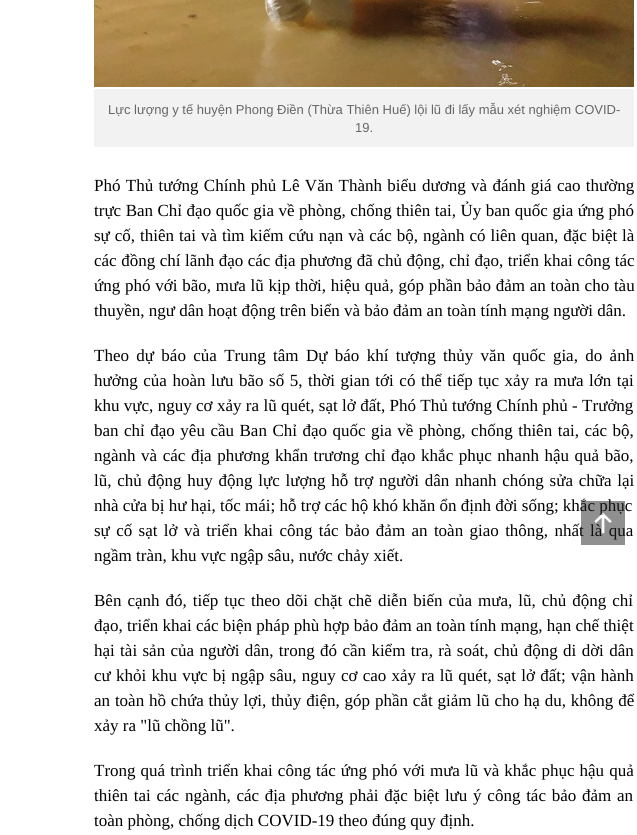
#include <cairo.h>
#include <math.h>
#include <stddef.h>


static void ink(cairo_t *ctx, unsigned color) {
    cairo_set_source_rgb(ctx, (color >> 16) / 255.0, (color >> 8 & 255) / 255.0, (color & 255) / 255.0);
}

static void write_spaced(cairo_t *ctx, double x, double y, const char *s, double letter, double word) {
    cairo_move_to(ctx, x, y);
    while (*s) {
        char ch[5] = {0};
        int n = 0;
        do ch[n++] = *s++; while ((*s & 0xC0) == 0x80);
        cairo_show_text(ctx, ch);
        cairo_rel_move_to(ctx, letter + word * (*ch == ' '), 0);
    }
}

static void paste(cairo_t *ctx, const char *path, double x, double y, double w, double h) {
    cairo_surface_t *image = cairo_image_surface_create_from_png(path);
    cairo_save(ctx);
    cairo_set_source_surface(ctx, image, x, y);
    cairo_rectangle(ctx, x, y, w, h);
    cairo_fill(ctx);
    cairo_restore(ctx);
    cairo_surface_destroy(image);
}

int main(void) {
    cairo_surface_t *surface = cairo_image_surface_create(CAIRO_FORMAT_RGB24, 637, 835);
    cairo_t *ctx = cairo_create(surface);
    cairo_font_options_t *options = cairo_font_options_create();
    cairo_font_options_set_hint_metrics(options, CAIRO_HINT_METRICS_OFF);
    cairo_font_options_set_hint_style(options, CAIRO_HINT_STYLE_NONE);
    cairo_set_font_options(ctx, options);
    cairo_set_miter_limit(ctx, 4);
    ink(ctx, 0xFFFFFF);
    cairo_paint(ctx);
    paste(ctx, "media/1.png", 94, 0, 540, 87);
    ink(ctx, 0xF2F2F2);
    cairo_rectangle(ctx, 94, 89, 540, 58);
    cairo_fill(ctx);
    cairo_select_font_face(ctx, "Liberation Sans", CAIRO_FONT_SLANT_NORMAL, CAIRO_FONT_WEIGHT_NORMAL);
    cairo_set_font_size(ctx, 13);
    ink(ctx, 0x666666);
    cairo_move_to(ctx, 108, 114);
    cairo_show_text(ctx, "Lực lượng y tế huyện Phong Điền (Thừa Thiên Huế) lội lũ đi lấy mẫu xét nghiệm COVID-");
    cairo_move_to(ctx, 355, 132);
    cairo_show_text(ctx, "19.");
    cairo_select_font_face(ctx, "Liberation Serif", CAIRO_FONT_SLANT_NORMAL, CAIRO_FONT_WEIGHT_NORMAL);
    cairo_set_font_size(ctx, 17);
    ink(ctx, 0x000000);
    write_spaced(ctx, 94, 191, "Phó Thủ tướng Chính phủ Lê Văn Thành biểu dương và đánh giá cao thường", 0, 1.1);
    write_spaced(ctx, 94, 216, "trực Ban Chỉ đạo quốc gia về phòng, chống thiên tai, Ủy ban quốc gia ứng phó", 0, 0.25);
    write_spaced(ctx, 94, 241, "sự cố, thiên tai và tìm kiếm cứu nạn và các bộ, ngành có liên quan, đặc biệt là", 0, 0.7);
    write_spaced(ctx, 94, 266, "các đồng chí lãnh đạo các địa phương đã chủ động, chỉ đạo, triển khai công tác", 0, 0.25);
    write_spaced(ctx, 94, 291, "ứng phó với bão, mưa lũ kịp thời, hiệu quả, góp phần bảo đảm an toàn cho tàu", 0, 0.5);
    cairo_move_to(ctx, 94, 316);
    cairo_show_text(ctx, "thuyền, ngư dân hoạt động trên biển và bảo đảm an toàn tính mạng người dân.");
    write_spaced(ctx, 94, 361, "Theo dự báo của Trung tâm Dự báo khí tượng thủy văn quốc gia, do ảnh", 0, 3.1);
    write_spaced(ctx, 94, 386, "hưởng của hoàn lưu bão số 5, thời gian tới có thể tiếp tục xảy ra mưa lớn tại", 0, 1.3);
    write_spaced(ctx, 94, 411, "khu vực, nguy cơ xảy ra lũ quét, sạt lở đất, Phó Thủ tướng Chính phủ - Trưởng", 0, 0.1);
    write_spaced(ctx, 94, 436, "ban chỉ đạo yêu cầu Ban Chỉ đạo quốc gia về phòng, chống thiên tai, các bộ,", 0, 1.25);
    write_spaced(ctx, 94, 461, "ngành và các địa phương khẩn trương chỉ đạo khắc phục nhanh hậu quả bão,", 0, 1.3);
    write_spaced(ctx, 94, 486, "lũ, chủ động huy động lực lượng hỗ trợ người dân nhanh chóng sửa chữa lại", 0, 1.5);
    cairo_move_to(ctx, 94, 511);
    cairo_show_text(ctx, "nhà cửa bị hư hại, tốc mái; hỗ trợ các hộ khó khăn ổn định đời sống; khắc phục");
    write_spaced(ctx, 94, 536, "sự cố sạt lở và triển khai công tác bảo đảm an toàn giao thông, nhất là qua", 0, 2.1);
    cairo_move_to(ctx, 94, 561);
    cairo_show_text(ctx, "ngầm tràn, khu vực ngập sâu, nước chảy xiết.");
    write_spaced(ctx, 94, 606, "Bên cạnh đó, tiếp tục theo dõi chặt chẽ diễn biến của mưa, lũ, chủ động chỉ", 0, 1.75);
    cairo_move_to(ctx, 94, 631);
    cairo_show_text(ctx, "đạo, triển khai các biện pháp phù hợp bảo đảm an toàn tính mạng, hạn chế thiệt");
    write_spaced(ctx, 94, 656, "hại tài sản của người dân, trong đó cần kiểm tra, rà soát, chủ động di dời dân", 0, 1.1);
    write_spaced(ctx, 94, 681, "cư khỏi khu vực bị ngập sâu, nguy cơ cao xảy ra lũ quét, sạt lở đất; vận hành", 0, 1);
    write_spaced(ctx, 94, 706, "an toàn hồ chứa thủy lợi, thủy điện, góp phần cắt giảm lũ cho hạ du, không để", 0, 0.6);
    cairo_move_to(ctx, 94, 731);
    cairo_show_text(ctx, "xảy ra \"lũ chồng lũ\".");
    write_spaced(ctx, 94, 776, "Trong quá trình triển khai công tác ứng phó với mưa lũ và khắc phục hậu quả", 0, 0.8);
    write_spaced(ctx, 94, 801, "thiên tai các ngành, các địa phương phải đặc biệt lưu ý công tác bảo đảm an", 0, 1.5);
    cairo_move_to(ctx, 94, 826);
    cairo_show_text(ctx, "toàn phòng, chống dịch COVID-19 theo đúng quy định.");
    paste(ctx, "media/2.png", 581, 501, 44, 44);
    cairo_surface_write_to_png(surface, "image.png");
    cairo_font_options_destroy(options);
    cairo_destroy(ctx);
    cairo_surface_destroy(surface);
    return 0;
}
